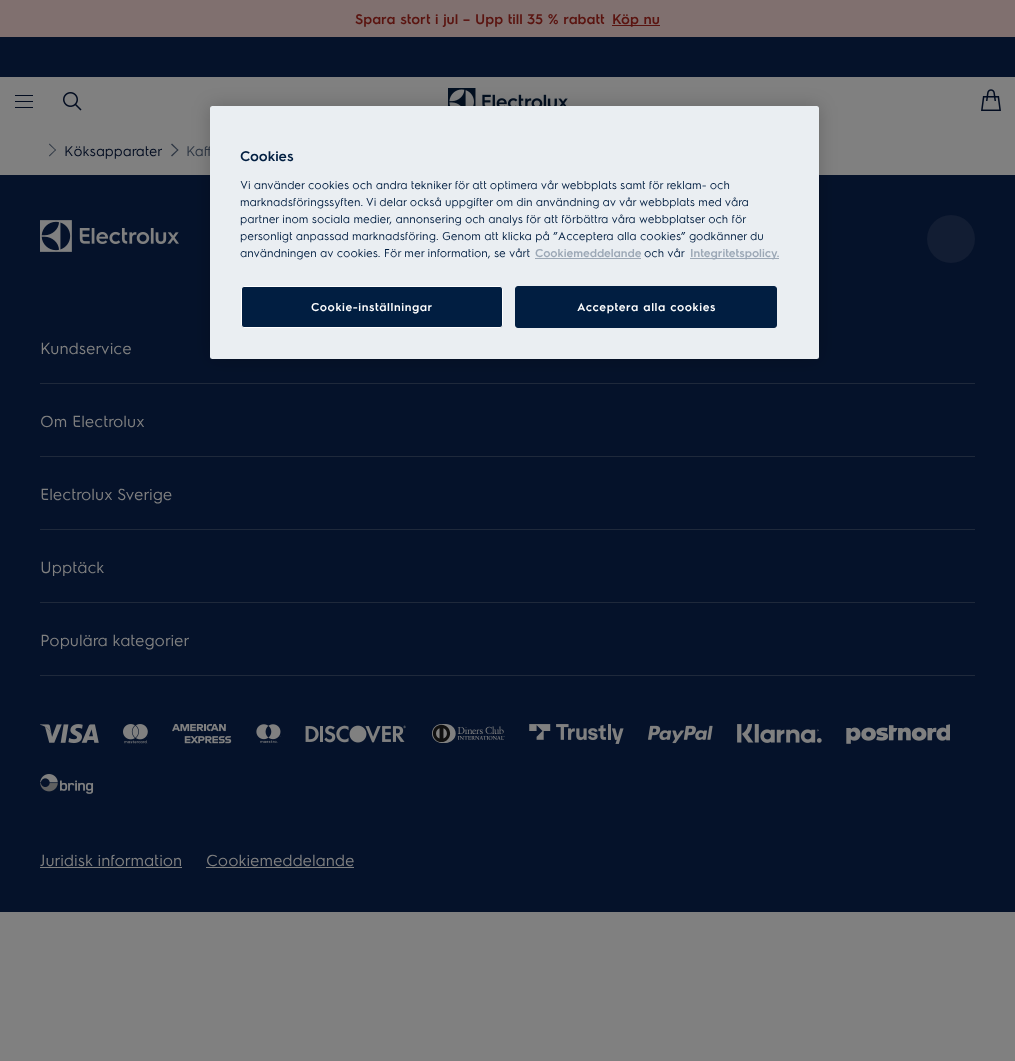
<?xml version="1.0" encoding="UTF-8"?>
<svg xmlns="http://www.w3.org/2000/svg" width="1015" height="1061">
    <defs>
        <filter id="blur1" x="-50%" y="-200%" width="200%" height="500%"><feGaussianBlur stdDeviation="9"/></filter>
    </defs>
    <rect width="100%" height="100%" fill="#808080"/>
    <rect x="0" y="0" width="1015" height="37" fill="#80706F"/>
    <text x="355" y="24" font-family="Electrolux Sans" font-size="14" font-weight="600" fill="#5A1410">Spara stort i jul – Upp till 35 % rabatt</text>
    <rect x="612" y="25" width="48" height="1" fill="#5A1410"/>
    <text x="612" y="24" font-family="Electrolux Sans" font-size="14" font-weight="600" fill="#5A1410">Köp nu</text>
    <rect x="0" y="37" width="1015" height="40" fill="#05122A"/>
    <rect x="15" y="101" width="18" height="1" fill="#020C20"/>
    <rect x="15" y="95" width="18" height="1" fill="#020C20"/>
    <rect x="15" y="107" width="18" height="1" fill="#020C20"/>
    <image x="63" y="92" width="19" height="19" href="img_01.png"/>
    <image x="448" y="88" width="120" height="18" href="img_02.png"/>
    <image x="981" y="89" width="20" height="22" href="img_03.png"/>
    <path d="M 49.5 143.5 L 56 150 L 55.5 150.5 L 49 144.5 Z" fill="#2D3643"/>
    <path d="M 55.5 149.5 L 56 150 L 49.5 156.5 L 49 155.5 Z" fill="#2D3643"/>
    <text x="64" y="156" font-family="Electrolux Sans" font-size="14" fill="#020C20">Köksapparater</text>
    <path d="M 172 143.5 L 178.5 150 L 177.5 150.5 L 171 144.5 Z" fill="#2D3643"/>
    <path d="M 177.5 149.5 L 178.5 150 L 172 156.5 L 171 155.5 Z" fill="#2D3643"/>
    <text x="186" y="156" font-family="Electrolux Sans" font-size="14" fill="#2D3643">Kaff</text>
    <rect x="0" y="175" width="1015" height="737" fill="#05122A"/>
    <image x="40" y="220" width="139" height="32" href="img_04.png"/>
    <circle cx="951" cy="239" r="24" fill="#121D33"/>
    <rect x="40" y="383" width="935" height="1" fill="#1F293B"/>
    <text x="40" y="354" font-family="Electrolux Sans" font-size="16" fill="#808080">Kundservice</text>
    <rect x="40" y="456" width="935" height="1" fill="#1F293B"/>
    <text x="40" y="427" font-family="Electrolux Sans" font-size="16" fill="#808080">Om Electrolux</text>
    <rect x="40" y="529" width="935" height="1" fill="#1F293B"/>
    <text x="40" y="500" font-family="Electrolux Sans" font-size="16" fill="#808080">Electrolux Sverige</text>
    <rect x="40" y="602" width="935" height="1" fill="#1F293B"/>
    <text x="40" y="573" font-family="Electrolux Sans" font-size="16" fill="#808080">Upptäck</text>
    <rect x="40" y="675" width="935" height="1" fill="#1F293B"/>
    <text x="40" y="646" font-family="Electrolux Sans" font-size="16" fill="#808080">Populära kategorier</text>
    <image x="40" y="724" width="59" height="20" href="img_05.png"/>
    <image x="123" y="724" width="25" height="20" href="img_06.png"/>
    <image x="172" y="724" width="60" height="20" href="img_07.png"/>
    <image x="256" y="724" width="25" height="19" href="img_08.png"/>
    <image x="305" y="725" width="101" height="18" href="img_09.png"/>
    <image x="432" y="724" width="73" height="19" href="img_10.png"/>
    <image x="529" y="724" width="95" height="20" href="img_11.png"/>
    <image x="648" y="725" width="65" height="19" href="img_12.png"/>
    <image x="737" y="724" width="85" height="19" href="img_13.png"/>
    <image x="846" y="724" width="104" height="20" href="img_14.png"/>
    <image x="40" y="774" width="54" height="20" href="img_15.png"/>
    <text x="40" y="866" font-family="Electrolux Sans" font-size="16" fill="#808080">Juridisk information</text>
    <rect x="40" y="867" width="142" height="1" fill="#808080"/>
    <text x="206" y="866" font-family="Electrolux Sans" font-size="16" fill="#808080">Cookiemeddelande</text>
    <rect x="206" y="867" width="148" height="1" fill="#808080"/>
    <rect x="210" y="106" width="609" height="253" rx="2.5" fill="#000000" fill-opacity="0.2" filter="url(#blur1)"/>
    <rect x="210" y="106" width="609" height="253" rx="2.5" fill="#EAEEF2"/>
    <text x="240" y="161" font-family="Electrolux Sans" font-size="14" font-weight="600" fill="#011E41">Cookies</text>
    <text font-family="Electrolux Sans" font-size="11.4" fill="#011E41">
        <tspan x="240" y="189">Vi använder cookies och andra tekniker för att optimera vår webbplats samt för reklam- och</tspan>
        <tspan x="240" y="206">marknadsföringssyften. Vi delar också uppgifter om din användning av vår webbplats med våra</tspan>
        <tspan x="240" y="223">partner inom sociala medier, annonsering och analys för att förbättra våra webbplatser och för</tspan>
        <tspan x="240" y="240">personligt anpassad marknadsföring. Genom att klicka på ”Acceptera alla cookies” godkänner du</tspan>
        <tspan x="240" y="257">användningen av cookies. För mer information, se vårt</tspan>
    </text>
    <text x="535" y="257" font-family="Electrolux Sans" font-size="11.4" font-weight="600" fill="#9CA8B6">Cookiemeddelande</text>
    <rect x="535" y="258" width="106" height="1" fill="#9CA8B6"/>
    <text x="644" y="257" font-family="Electrolux Sans" font-size="11.4" fill="#011E41">och vår</text>
    <rect x="690" y="258" width="89" height="1" fill="#9CA8B6"/>
    <text x="690" y="257" font-family="Electrolux Sans" font-size="11.4" font-weight="600" fill="#9CA8B6">Integritetspolicy.</text>
    <rect x="241.5" y="286.5" width="261" height="41" rx="2.5" fill="#011E41" stroke="#FFFFFF"/>
    <text x="311" y="311" font-family="Electrolux Sans" font-size="11.4" font-weight="600" letter-spacing="0.6" fill="#FFFFFF">Cookie-inställningar</text>
    <rect x="515.5" y="286.5" width="261" height="41" rx="2.5" fill="#011E41" stroke="#011E41"/>
    <text x="577" y="311" font-family="Electrolux Sans" font-size="11.4" font-weight="600" letter-spacing="0.6" fill="#FFFFFF">Acceptera alla cookies</text>
</svg>
